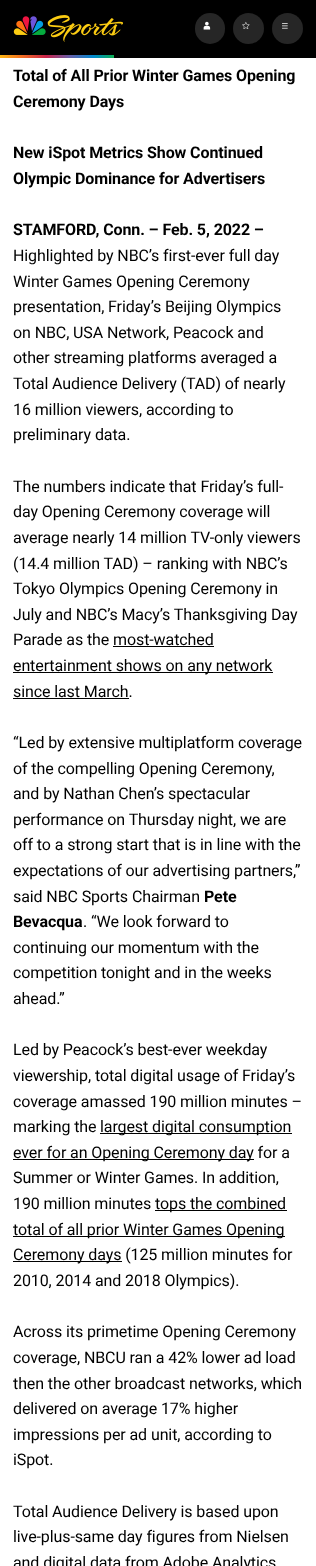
<?xml version="1.0" encoding="UTF-8"?>
<svg xmlns="http://www.w3.org/2000/svg" width="316" height="1566">
    <rect width="100%" height="100%" fill="#FFFFFF"/>
    <rect x="0" y="0" width="316" height="58" fill="#000000"/>
    <image x="13" y="15" width="110" height="27" href="img_01.png"/>
    <rect x="195" y="13" width="30" height="31" rx="15" fill="#262626"/>
    <image x="203" y="21" width="8" height="9" href="img_02.png"/>
    <circle cx="248.5" cy="28.5" r="15.5" fill="#262626"/>
    <image x="242" y="21" width="8" height="8" href="img_03.png"/>
    <circle cx="287.5" cy="28.5" r="15.5" fill="#262626"/>
    <image x="282" y="23" width="6" height="6" href="img_04.png"/>
    <image x="0" y="55" width="114" height="3" href="img_05.png"/>
    <text font-family="Roboto" font-size="16" font-weight="700" letter-spacing="-0.1" fill="#000000">
        <tspan x="13" y="81">Total of All Prior Winter Games Opening</tspan>
        <tspan x="13" y="107">Ceremony Days</tspan>
    </text>
    <text font-family="Roboto" font-size="16" font-weight="700" letter-spacing="-0.1" fill="#000000">
        <tspan x="13" y="158">New iSpot Metrics Show Continued</tspan>
        <tspan x="13" y="184">Olympic Dominance for Advertisers</tspan>
    </text>
    <text x="13" y="235" font-family="Roboto" font-size="16" font-weight="700" letter-spacing="-0.1" fill="#000000">STAMFORD, Conn. – Feb. 5, 2022 –</text>
    <text font-family="Roboto" font-size="16" letter-spacing="-0.1" fill="#000000">
        <tspan x="13" y="261">Highlighted by NBC’s first-ever full day</tspan>
        <tspan x="13" y="287">Winter Games Opening Ceremony</tspan>
        <tspan x="13" y="312">presentation, Friday’s Beijing Olympics</tspan>
        <tspan x="13" y="338">on NBC, USA Network, Peacock and</tspan>
        <tspan x="13" y="363">other streaming platforms averaged a</tspan>
        <tspan x="13" y="389">Total Audience Delivery (TAD) of nearly</tspan>
        <tspan x="13" y="415">16 million viewers, according to</tspan>
        <tspan x="13" y="440">preliminary data.</tspan>
    </text>
    <text font-family="Roboto" font-size="16" letter-spacing="-0.1" fill="#000000">
        <tspan x="13" y="492">The numbers indicate that Friday’s full-</tspan>
        <tspan x="13" y="517">day Opening Ceremony coverage will</tspan>
        <tspan x="13" y="543">average nearly 14 million TV-only viewers</tspan>
        <tspan x="13" y="569">(14.4 million TAD) – ranking with NBC’s</tspan>
        <tspan x="13" y="594">Tokyo Olympics Opening Ceremony in</tspan>
        <tspan x="13" y="620">July and NBC’s Macy’s Thanksgiving Day</tspan>
        <tspan x="13" y="645">Parade as the most-watched</tspan>
    </text>
    <rect x="13" y="672" width="260" height="1" fill="#000000"/>
    <text x="13" y="671" font-family="Roboto" font-size="16" letter-spacing="-0.1" fill="#000000">entertainment shows on any network</text>
    <rect x="113" y="646" width="101" height="1" fill="#000000"/>
    <text x="13" y="697" font-family="Roboto" font-size="16" letter-spacing="-0.1" fill="#000000">since last March.</text>
    <rect x="13" y="698" width="116" height="1" fill="#000000"/>
    <text font-family="Roboto" font-size="16" letter-spacing="-0.1" fill="#000000">
        <tspan x="13" y="748">“Led by extensive multiplatform coverage</tspan>
        <tspan x="13" y="774">of the compelling Opening Ceremony,</tspan>
        <tspan x="13" y="799">and by Nathan Chen’s spectacular</tspan>
        <tspan x="13" y="825">performance on Thursday night, we are</tspan>
        <tspan x="13" y="850">off to a strong start that is in line with the</tspan>
        <tspan x="13" y="876">expectations of our advertising partners,”</tspan>
        <tspan x="13" y="902">said NBC Sports Chairman</tspan>
    </text>
    <text x="204" y="902" font-family="Roboto" font-size="16" font-weight="700" letter-spacing="-0.1" fill="#000000">Pete</text>
    <text x="13" y="927" font-family="Roboto" font-size="16" font-weight="700" letter-spacing="-0.1" fill="#000000">Bevacqua</text>
    <text x="83" y="927" font-family="Roboto" font-size="16" letter-spacing="-0.1" fill="#000000">. “We look forward to</text>
    <text font-family="Roboto" font-size="16" letter-spacing="-0.1" fill="#000000">
        <tspan x="13" y="953">continuing our momentum with the</tspan>
        <tspan x="13" y="978">competition tonight and in the weeks</tspan>
        <tspan x="13" y="1004">ahead.”</tspan>
    </text>
    <text font-family="Roboto" font-size="16" letter-spacing="-0.1" fill="#000000">
        <tspan x="13" y="1055">Led by Peacock’s best-ever weekday</tspan>
        <tspan x="13" y="1081">viewership, total digital usage of Friday’s</tspan>
        <tspan x="13" y="1107">coverage amassed 190 million minutes –</tspan>
        <tspan x="13" y="1132">marking the</tspan>
    </text>
    <rect x="100" y="1133" width="192" height="1" fill="#000000"/>
    <text x="100" y="1132" font-family="Roboto" font-size="16" letter-spacing="-0.1" fill="#000000">largest digital consumption</text>
    <rect x="13" y="1159" width="241" height="1" fill="#000000"/>
    <text font-family="Roboto" font-size="16" letter-spacing="-0.1" fill="#000000">
        <tspan x="13" y="1158">ever for an Opening Ceremony day for a</tspan>
        <tspan x="13" y="1183">Summer or Winter Games. In addition,</tspan>
        <tspan x="13" y="1209">190 million minutes</tspan>
    </text>
    <rect x="155" y="1210" width="132" height="1" fill="#000000"/>
    <text x="155" y="1209" font-family="Roboto" font-size="16" letter-spacing="-0.1" fill="#000000">tops the combined</text>
    <rect x="13" y="1236" width="272" height="1" fill="#000000"/>
    <text x="13" y="1235" font-family="Roboto" font-size="16" letter-spacing="-0.1" fill="#000000">total of all prior Winter Games Opening</text>
    <rect x="13" y="1261" width="109" height="1" fill="#000000"/>
    <text font-family="Roboto" font-size="16" letter-spacing="-0.1" fill="#000000">
        <tspan x="13" y="1260">Ceremony days (125 million minutes for</tspan>
        <tspan x="13" y="1286">2010, 2014 and 2018 Olympics).</tspan>
    </text>
    <text font-family="Roboto" font-size="16" letter-spacing="-0.1" fill="#000000">
        <tspan x="13" y="1337">Across its primetime Opening Ceremony</tspan>
        <tspan x="13" y="1363">coverage, NBCU ran a 42% lower ad load</tspan>
        <tspan x="13" y="1389">then the other broadcast networks, which</tspan>
        <tspan x="13" y="1414">delivered on average 17% higher</tspan>
        <tspan x="13" y="1440">impressions per ad unit, according to</tspan>
        <tspan x="13" y="1465">iSpot.</tspan>
    </text>
    <text font-family="Roboto" font-size="16" letter-spacing="-0.1" fill="#000000">
        <tspan x="13" y="1517">Total Audience Delivery is based upon</tspan>
        <tspan x="13" y="1542">live-plus-same day figures from Nielsen</tspan>
        <tspan x="13" y="1568">and digital data from Adobe Analytics</tspan>
    </text>
</svg>
